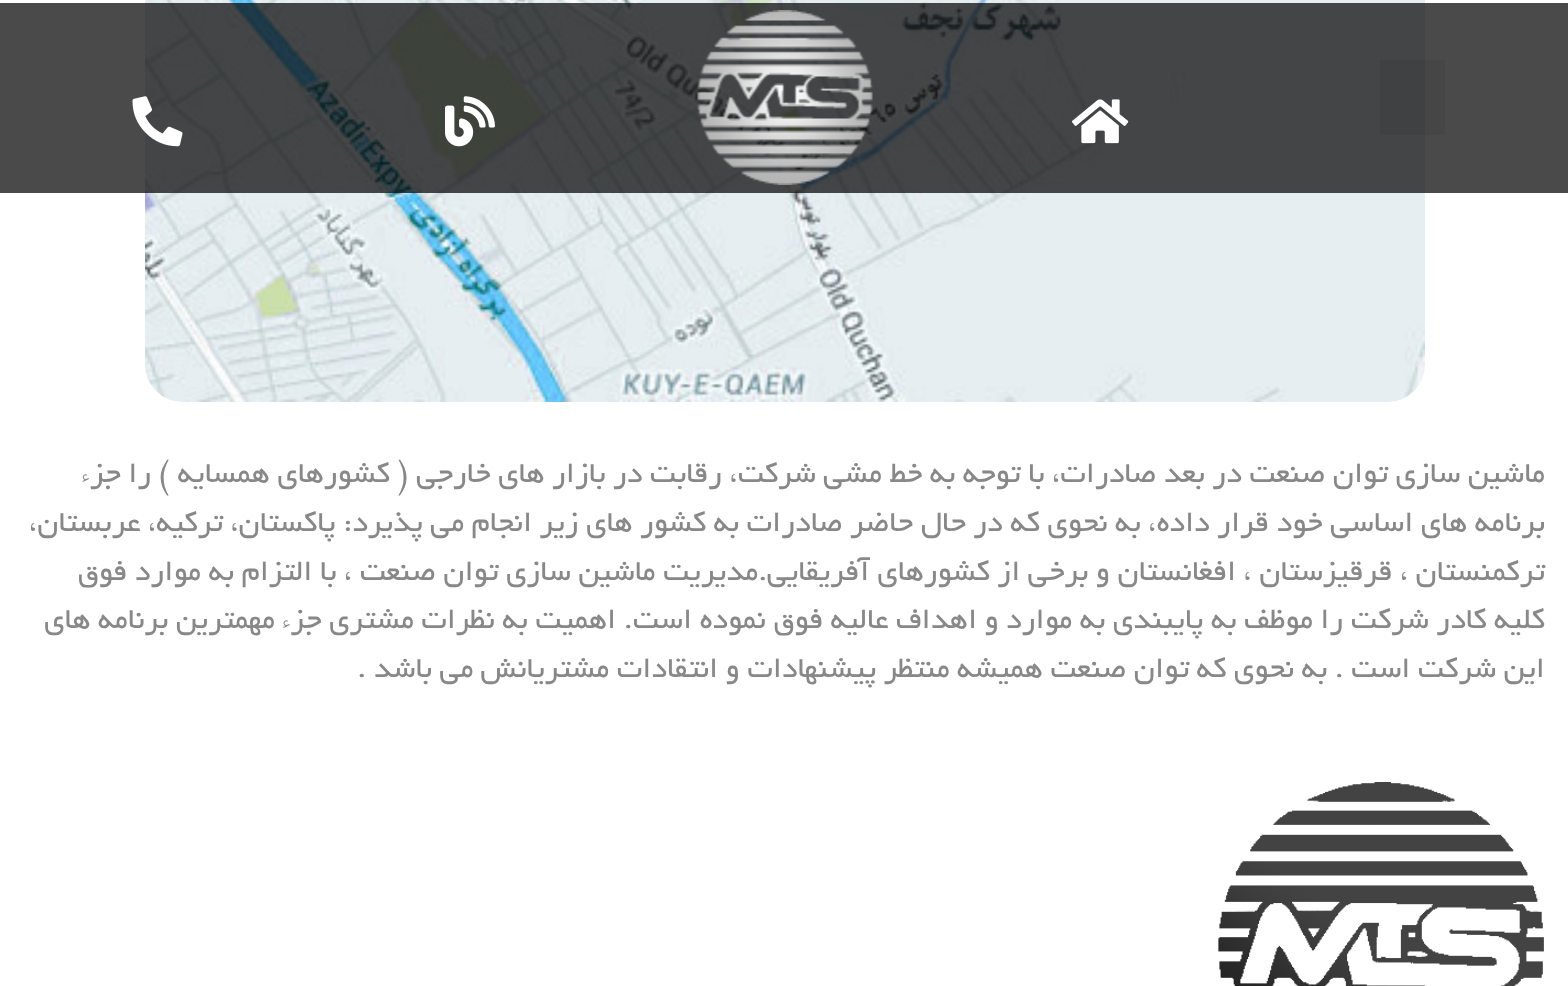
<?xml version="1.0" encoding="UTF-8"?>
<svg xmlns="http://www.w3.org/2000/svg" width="1568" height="986">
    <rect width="100%" height="100%" fill="#FFFFFF"/>
    <image x="145" y="0" width="1280" height="402" href="img_05.png"/>
    <rect x="0" y="3" width="1568" height="190" fill="#000000" fill-opacity="0.71"/>
    <rect x="1380" y="60" width="65" height="75" fill="#000000" fill-opacity="0.05"/>
    <image x="1072" y="99" width="57" height="45" href="img_01.png"/>
    <image x="697" y="10" width="176" height="175" href="img_02.png"/>
    <image x="445" y="96" width="50" height="51" href="img_03.png"/>
    <image x="132" y="96" width="51" height="51" href="img_04.png"/>
    <text font-family="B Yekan" font-size="32.5" direction="rtl" fill="#888888">
        <tspan x="1545" y="482">ماشین سازی توان صنعت در بعد صادرات، با توجه به خط مشی شرکت، رقابت در بازار های خارجی ( کشورهای همسایه ) را جزء</tspan>
        <tspan x="1545" y="531">برنامه های اساسی خود قرار داده، به نحوی که در حال حاضر صادرات به کشور های زیر انجام می پذیرد: پاکستان، ترکیه، عربستان،</tspan>
        <tspan x="1545" y="580">ترکمنستان ، قرقیزستان ، افغانستان و برخی از کشورهای آفریقایی.مدیریت ماشین سازی توان صنعت ، با التزام به موارد فوق</tspan>
        <tspan x="1545" y="628">کلیه کادر شرکت را موظف به پایبندی به موارد و اهداف عالیه فوق نموده است. اهميت به نظرات مشتري جزء مهمترين برنامه هاي</tspan>
        <tspan x="1545" y="677">اين شركت است . به نحوي كه توان صنعت هميشه منتظر پيشنهادات و انتقادات مشتريانش مي باشد .</tspan>
    </text>
    <image x="1218" y="782" width="326" height="204" href="img_06.png"/>
</svg>
